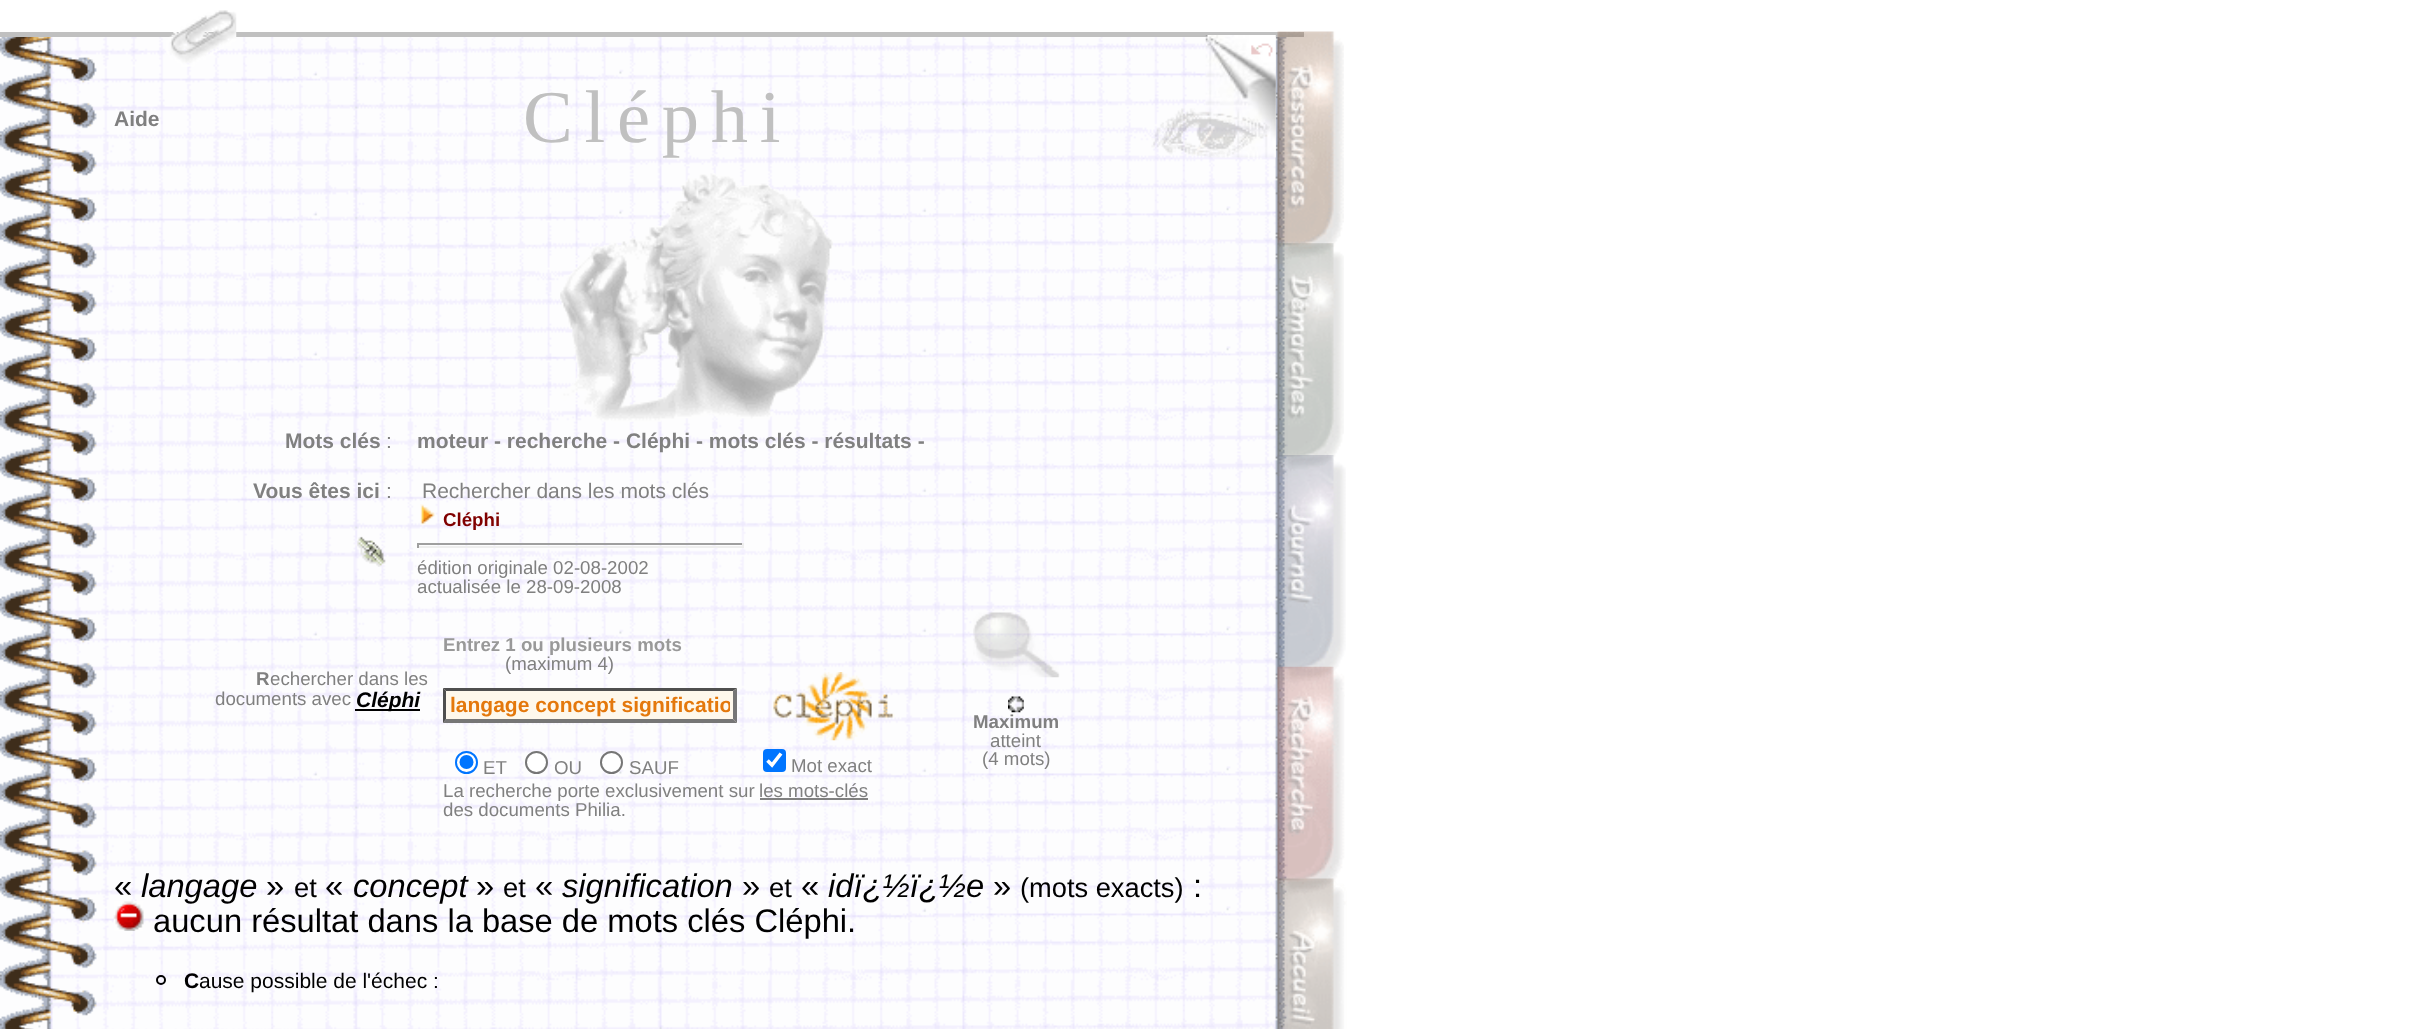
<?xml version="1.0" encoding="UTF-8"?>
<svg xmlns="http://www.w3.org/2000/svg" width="2433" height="1029">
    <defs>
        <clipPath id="clip1"><rect x="450" y="693" width="280" height="25"/></clipPath>
    </defs>
    <rect width="100%" height="100%" fill="#FFFFFF"/>
    <image x="0" y="37" width="1288" height="992" href="img_01.png"/>
    <rect x="0" y="32" width="1304" height="5" fill="#C0C0C0"/>
    <image x="166" y="10" width="71" height="57" href="img_02.png"/>
    <image x="1277" y="31" width="67" height="233" href="img_03.png"/>
    <image x="1205" y="35" width="71" height="123" href="img_04.png"/>
    <image x="1251" y="43" width="22" height="14" href="img_05.png"/>
    <text x="114" y="126" font-family="Liberation Sans" font-size="21" font-weight="700" fill="#808080">Aide</text>
    <text x="523" y="142" font-family="Liberation Serif" font-size="74.5" letter-spacing="11.75" fill="#C0C0C0">Cléphi</text>
    <image x="1151" y="108" width="119" height="48" href="img_06.png"/>
    <image x="560" y="173" width="273" height="249" href="img_07.png"/>
    <image x="1277" y="243" width="67" height="233" href="img_08.png"/>
    <text x="285" y="448" font-family="Liberation Sans" font-size="21" font-weight="700" fill="#808080">Mots clés</text>
    <text x="386" y="448" font-family="Liberation Sans" font-size="21" fill="#808080">:</text>
    <text x="417" y="448" font-family="Liberation Sans" font-size="21" font-weight="700" fill="#808080">moteur - recherche - Cléphi - mots clés - résultats -</text>
    <text x="253" y="498" font-family="Liberation Sans" font-size="21" font-weight="700" fill="#808080">Vous êtes ici</text>
    <text x="386" y="498" font-family="Liberation Sans" font-size="21" fill="#808080">:</text>
    <image x="357" y="536" width="29" height="31" href="img_09.png"/>
    <text x="422" y="498" font-family="Liberation Sans" font-size="21" fill="#808080">Rechercher dans les mots clés</text>
    <image x="420" y="504" width="15" height="21" href="img_10.png"/>
    <text x="443" y="526" font-family="Liberation Sans" font-size="18.7" font-weight="700" fill="#800000">Cléphi</text>
    <rect x="417" y="543" width="327" height="2" fill="#9F9F9F"/>
    <rect x="742" y="543" width="2" height="5" fill="#EEEEEE"/>
    <rect x="417" y="546" width="327" height="2" fill="#EEEEEE"/>
    <rect x="417" y="543" width="2" height="5" fill="#9F9F9F"/>
    <text font-family="Liberation Sans" font-size="18.7" fill="#808080">
        <tspan x="417" y="574">édition originale 02-08-2002</tspan>
        <tspan x="417" y="593">actualisée le 28-09-2008</tspan>
    </text>
    <text x="256" y="685" font-family="Liberation Sans" font-size="18.7" font-weight="700" fill="#808080">R</text>
    <text x="270" y="685" font-family="Liberation Sans" font-size="18.7" fill="#808080">echercher dans les</text>
    <text x="215" y="705" font-family="Liberation Sans" font-size="18.7" fill="#808080">documents avec</text>
    <rect x="355" y="709" width="65" height="2" fill="#000000"/>
    <text x="356" y="707" font-family="Liberation Sans" font-size="21" font-weight="700" font-style="italic" fill="#000000">Cléphi</text>
    <text x="443" y="651" font-family="Liberation Sans" font-size="18.7" font-weight="700" fill="#999999">Entrez 1 ou plusieurs mots</text>
    <text x="505" y="670" font-family="Liberation Sans" font-size="18.7" fill="#808080">(maximum 4)</text>
    <rect x="443" y="688" width="294" height="35" fill="#FEF8EC"/>
    <path d="M 443 688 H 737 L 733 691 H 446 Z" fill="#4F4F4F"/>
    <path d="M 737 688 V 723 L 733 719 V 691 Z" fill="#767676"/>
    <path d="M 737 723 H 443 L 446 719 H 733 Z" fill="#767676"/>
    <path d="M 443 723 V 688 L 446 691 V 719 Z" fill="#4F4F4F"/>
    <g clip-path="url(#clip1)">
        <text x="450" y="712" font-family="Liberation Sans" font-size="21" font-weight="700" fill="#E4780C">langage concept significatio</text>
    </g>
    <image x="773" y="672" width="122" height="69" href="img_11.png"/>
    <circle cx="466.5" cy="762.5" r="10.5" fill="#FFFFFF" stroke="#0075FF" stroke-width="2"/>
    <circle cx="466.5" cy="762" r="7" fill="#0075FF"/>
    <text x="483" y="774" font-family="Liberation Sans" font-size="18.7" fill="#808080">ET</text>
    <circle cx="536.5" cy="762.5" r="10.5" fill="#FFFFFF" stroke="#767676" stroke-width="2"/>
    <text x="554" y="774" font-family="Liberation Sans" font-size="18.7" fill="#808080">OU</text>
    <circle cx="611.5" cy="762.5" r="10.5" fill="#FFFFFF" stroke="#767676" stroke-width="2"/>
    <text x="629" y="774" font-family="Liberation Sans" font-size="18.7" fill="#808080">SAUF</text>
    <rect x="763" y="749" width="23" height="23" rx="4" fill="#0075FF"/>
    <path d="M 767.5 760.5 L 772 765 L 781 753.5" fill="none" stroke="#FFFFFF" stroke-width="3.6"/>
    <text x="791" y="772" font-family="Liberation Sans" font-size="18.7" fill="#808080">Mot exact</text>
    <text x="443" y="797" font-family="Liberation Sans" font-size="18.7" fill="#808080">La recherche porte exclusivement sur</text>
    <text x="759" y="797" font-family="Liberation Sans" font-size="18.7" fill="#808080">les mots-clés</text>
    <rect x="760" y="798" width="108" height="2" fill="#808080"/>
    <text x="443" y="816" font-family="Liberation Sans" font-size="18.7" fill="#808080">des documents Philia.</text>
    <image x="973" y="612" width="87" height="66" href="img_12.png"/>
    <image x="1008" y="696" width="16" height="17" href="img_13.png"/>
    <text x="973" y="728" font-family="Liberation Sans" font-size="18.7" font-weight="700" fill="#808080">Maximum</text>
    <text x="990" y="747" font-family="Liberation Sans" font-size="18.7" fill="#808080">atteint</text>
    <text x="982" y="765" font-family="Liberation Sans" font-size="18.7" fill="#808080">(4 mots)</text>
    <text x="114" y="897" font-family="Liberation Sans" font-size="32.7" fill="#000000">«</text>
    <text x="141" y="897" font-family="Liberation Sans" font-size="32.7" font-style="italic" fill="#000000">langage</text>
    <text x="266" y="897" font-family="Liberation Sans" font-size="32.7" fill="#000000">»</text>
    <text x="294" y="897" font-family="Liberation Sans" font-size="27.25" fill="#000000">et</text>
    <text x="325" y="897" font-family="Liberation Sans" font-size="32.7" fill="#000000">«</text>
    <text x="353" y="897" font-family="Liberation Sans" font-size="32.7" font-style="italic" fill="#000000">concept</text>
    <text x="476" y="897" font-family="Liberation Sans" font-size="32.7" fill="#000000">»</text>
    <text x="503" y="897" font-family="Liberation Sans" font-size="27.25" fill="#000000">et</text>
    <text x="535" y="897" font-family="Liberation Sans" font-size="32.7" fill="#000000">«</text>
    <text x="562" y="897" font-family="Liberation Sans" font-size="32.7" font-style="italic" fill="#000000">signification</text>
    <text x="742" y="897" font-family="Liberation Sans" font-size="32.7" fill="#000000">»</text>
    <text x="769" y="897" font-family="Liberation Sans" font-size="27.25" fill="#000000">et</text>
    <text x="801" y="897" font-family="Liberation Sans" font-size="32.7" fill="#000000">«</text>
    <text x="828" y="897" font-family="Liberation Sans" font-size="32.7" font-style="italic" fill="#000000">idï¿½ï¿½e</text>
    <text x="993" y="897" font-family="Liberation Sans" font-size="32.7" fill="#000000">»</text>
    <text x="1020" y="897" font-family="Liberation Sans" font-size="27.25" fill="#000000">(mots exacts)</text>
    <text x="1193" y="897" font-family="Liberation Sans" font-size="32.7" fill="#000000">:</text>
    <image x="113" y="901" width="31" height="30" href="img_14.png"/>
    <text x="153" y="932" font-family="Liberation Sans" font-size="32.7" fill="#000000">aucun résultat dans la base de mots clés Cléphi.</text>
    <circle cx="161" cy="980" r="4" fill="none" stroke="#000000" stroke-width="2"/>
    <text x="184" y="988" font-family="Liberation Sans" font-size="21" font-weight="700" fill="#000000">C</text>
    <text x="199" y="988" font-family="Liberation Sans" font-size="21" fill="#000000">ause possible de l'échec :</text>
    <image x="1277" y="455" width="69" height="233" href="img_15.png"/>
    <image x="1277" y="666" width="68" height="234" href="img_16.png"/>
    <image x="1277" y="878" width="70" height="151" href="img_17.png"/>
</svg>
